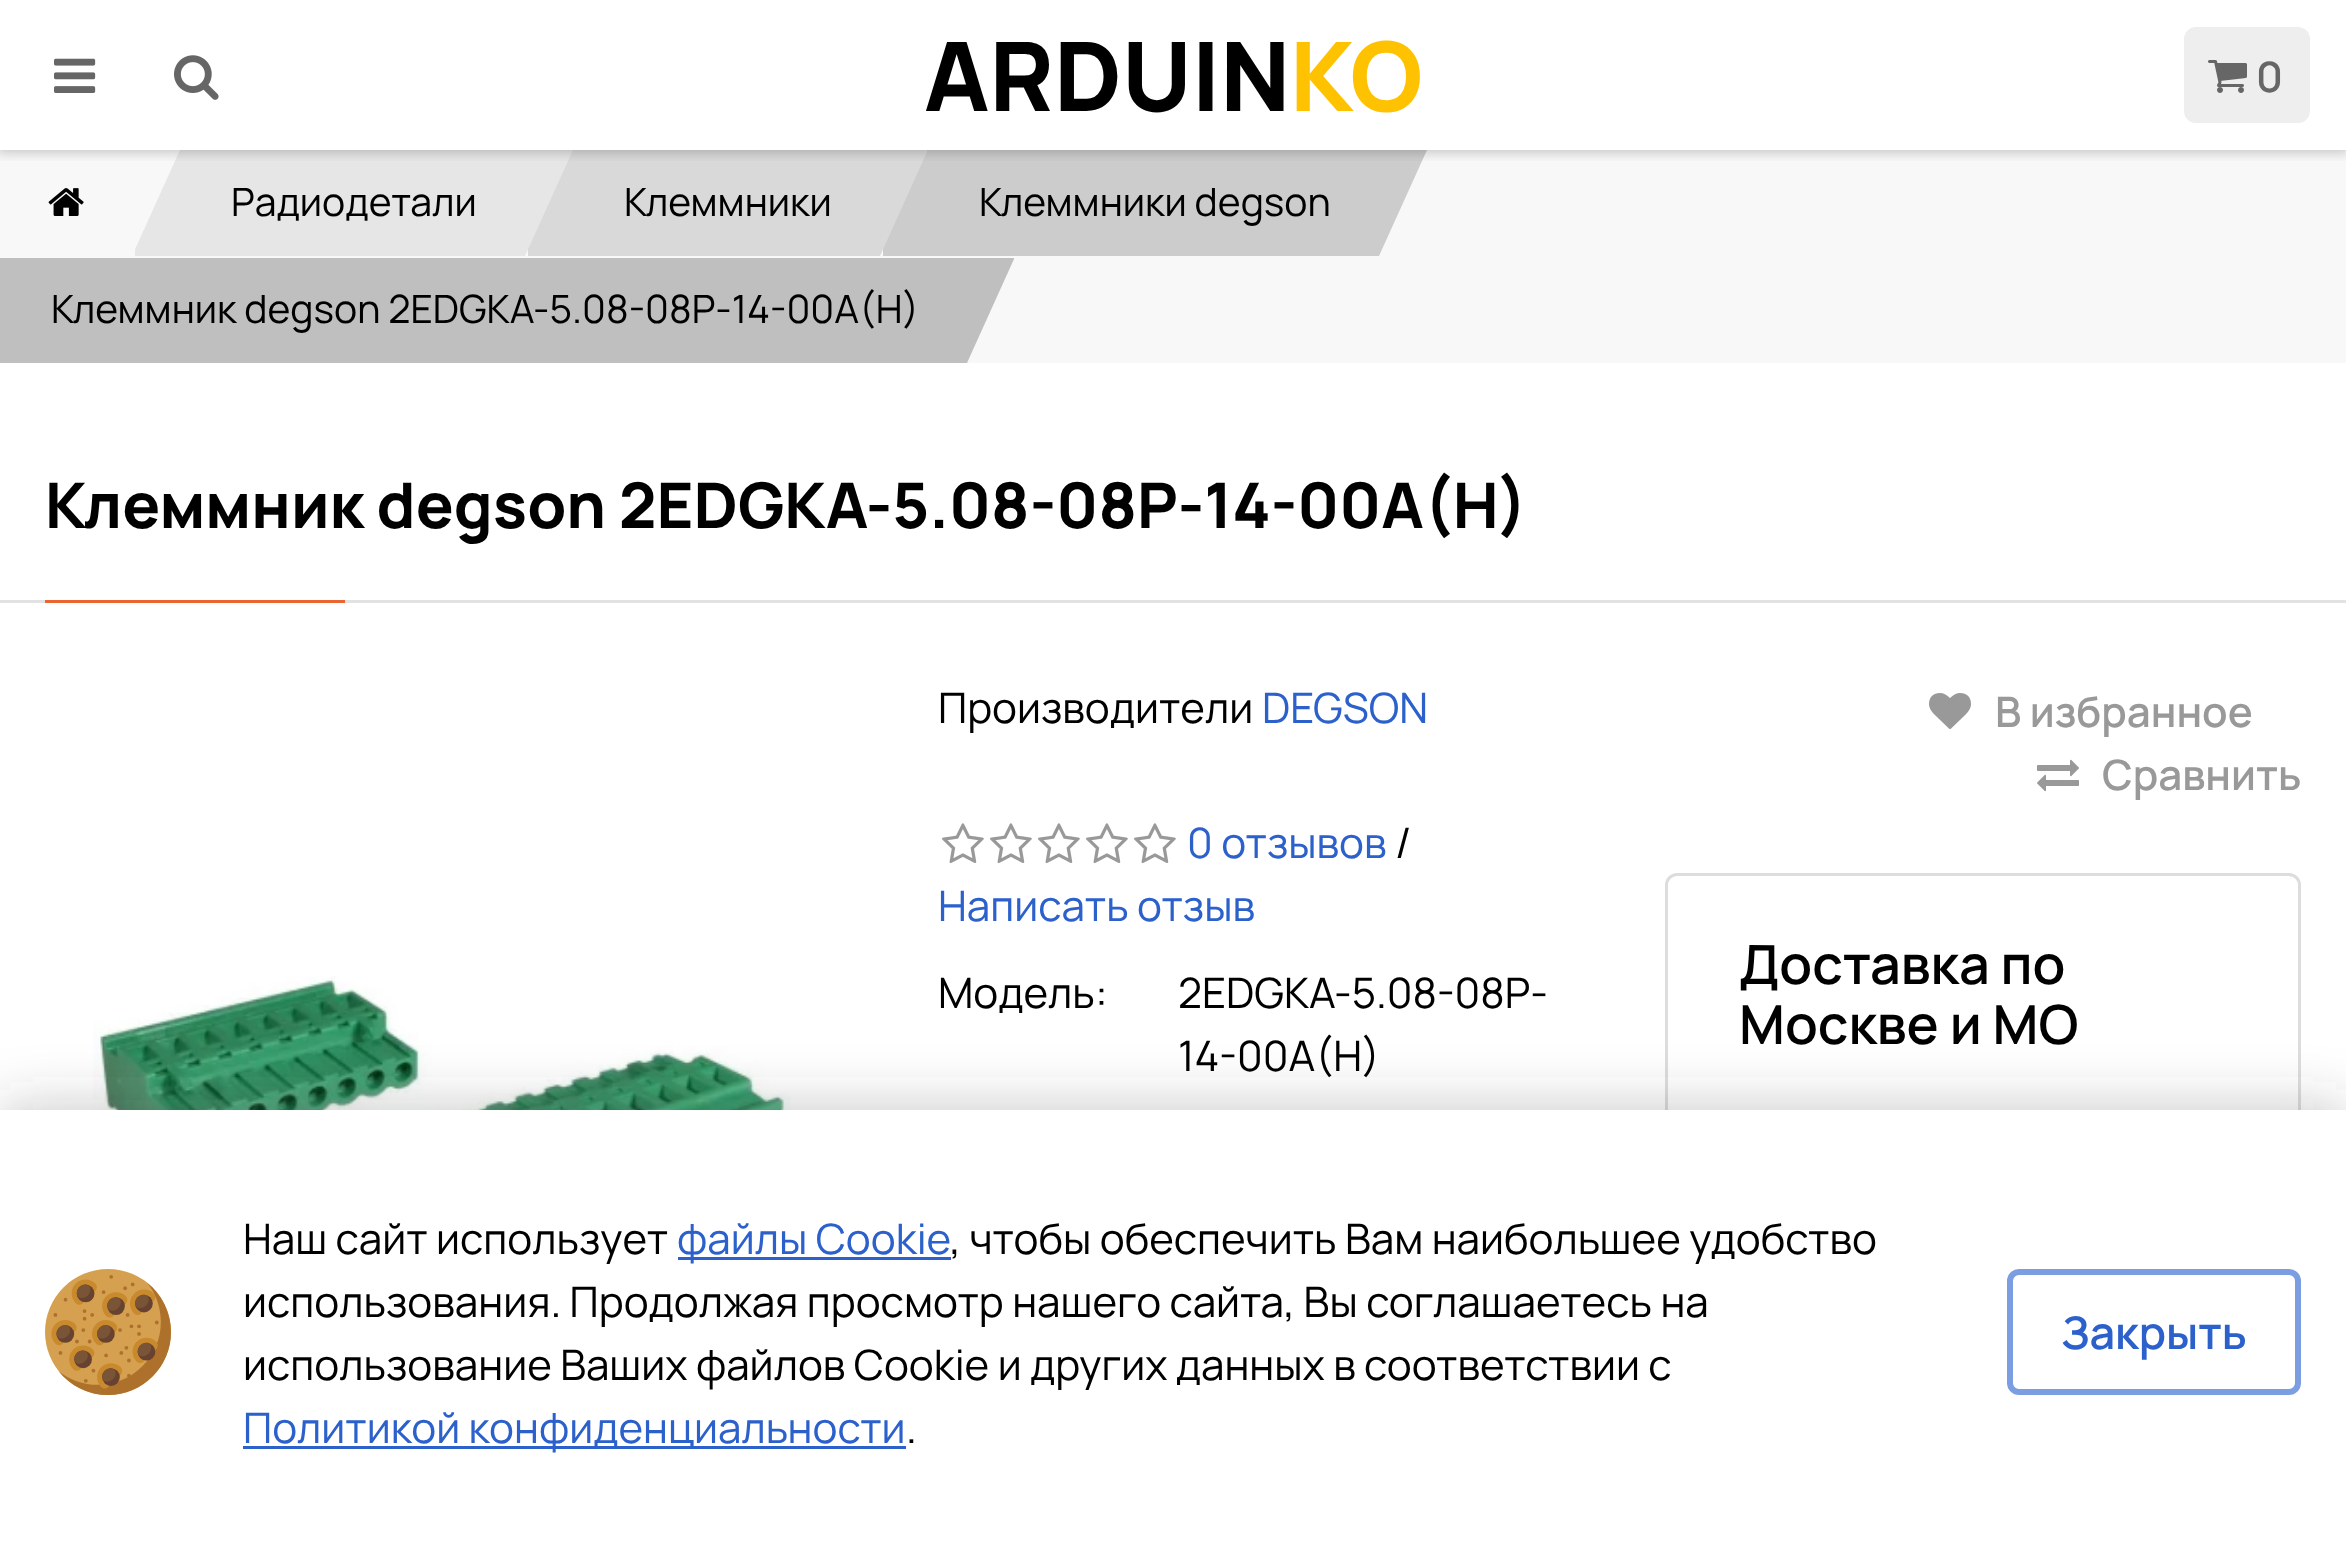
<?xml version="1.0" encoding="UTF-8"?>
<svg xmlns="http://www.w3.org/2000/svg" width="2346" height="1553">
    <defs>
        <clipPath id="clip1"><rect x="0" y="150" width="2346" height="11"/></clipPath>
        <filter id="blur1" x="-50%" y="-200%" width="200%" height="500%"><feGaussianBlur stdDeviation="6"/></filter>
        <filter id="blur2" x="-50%" y="-200%" width="200%" height="500%"><feGaussianBlur stdDeviation="30"/></filter>
    </defs>
    <rect width="100%" height="100%" fill="#FFFFFF"/>
    <rect x="0" y="150" width="2346" height="213" fill="#F8F8F8"/>
    <path d="M 883 150 V 256 H 1379 L 1427 150 Z" fill="#CCCCCC"/>
    <path d="M 528 150 V 256 H 880 L 927 152 V 150 Z" fill="#D9D9D9"/>
    <path d="M 135 150 V 256 H 525 L 573 150 Z" fill="#E6E6E6"/>
    <path d="M 0 150 V 256 H 132 L 180 150 Z" fill="#F8F8F8"/>
    <g clip-path="url(#clip1)">
        <rect x="-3" y="-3" width="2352" height="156" fill="#000000" fill-opacity="0.2" filter="url(#blur1)"/>
    </g>
    <image x="54" y="58" width="42" height="35" href="img_01.png"/>
    <image x="174" y="55" width="45" height="45" href="img_02.png"/>
    <text x="924" y="111" font-family="Manrope" font-size="96" font-weight="800" fill="#000000">ARDUIN</text>
    <text x="1290" y="111" font-family="Manrope" font-size="96" font-weight="800" fill="#FFC200">KO</text>
    <rect x="2187" y="30" width="120" height="90" rx="9" fill="#EEEEEE" stroke="#EEEEEE" stroke-width="6"/>
    <image x="2208" y="60" width="39" height="33" href="img_03.png"/>
    <text x="2256" y="92" font-family="Manrope" font-size="42" font-weight="600" fill="#666666">0</text>
    <image x="48" y="188" width="36" height="28" href="img_04.png"/>
    <text x="231" y="216" font-family="Manrope" font-size="39" fill="#000000">Радиодетали</text>
    <text x="624" y="216" font-family="Manrope" font-size="39" fill="#000000">Клеммники</text>
    <text x="979" y="216" font-family="Manrope" font-size="39" fill="#000000">Клеммники degson</text>
    <path d="M -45 258 V 363 H 967 L 1014 259 V 258 Z" fill="#BFBFBF"/>
    <text x="51" y="323" font-family="Manrope" font-size="39" fill="#000000">Клеммник degson 2EDGKA-5.08-08P-14-00A(H)</text>
    <rect x="0" y="600" width="2346" height="3" fill="#E2E2E2"/>
    <text x="45" y="528" font-family="Manrope" font-size="63" font-weight="700" fill="#000000">Клеммник degson 2EDGKA-5.08-08P-14-00A(H)</text>
    <rect x="45" y="600" width="300" height="3" fill="#E96631"/>
    <image x="93" y="976" width="698" height="134" href="img_05.png"/>
    <text x="938" y="723" font-family="Manrope" font-size="42" fill="#000000">Производители</text>
    <text x="1262" y="723" font-family="Manrope" font-size="42" fill="#2C61CC">DEGSON</text>
    <image x="942" y="823" width="42" height="40" href="img_06.png"/>
    <image x="990" y="823" width="42" height="40" href="img_06.png"/>
    <image x="1038" y="823" width="42" height="40" href="img_06.png"/>
    <image x="1086" y="823" width="42" height="40" href="img_06.png"/>
    <image x="1134" y="823" width="42" height="40" href="img_06.png"/>
    <text x="1187" y="858" font-family="Manrope" font-size="42" fill="#2C61CC">0 отзывов</text>
    <text x="1395" y="858" font-family="Manrope" font-size="42" fill="#000000">/</text>
    <text x="938" y="921" font-family="Manrope" font-size="42" fill="#2C61CC">Написать отзыв</text>
    <text x="938" y="1008" font-family="Manrope" font-size="42" fill="#000000">Модель:</text>
    <text font-family="Manrope" font-size="42" fill="#000000">
        <tspan x="1178" y="1008">2EDGKA-5.08-08P-</tspan>
        <tspan x="1178" y="1071">14-00A(H)</tspan>
    </text>
    <image x="1929" y="693" width="42" height="36" href="img_07.png"/>
    <text x="1995" y="727" font-family="Manrope" font-size="42" font-weight="600" fill="#999999">В избранное</text>
    <image x="2037" y="759" width="42" height="33" href="img_08.png"/>
    <text x="2102" y="790" font-family="Manrope" font-size="42" font-weight="600" fill="#999999">Сравнить</text>
    <rect x="1666.5" y="874.5" width="633" height="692" rx="10.5" fill="none" stroke="#DDDDDD" stroke-width="3"/>
    <text font-family="Manrope" font-size="54" font-weight="600" fill="#000000">
        <tspan x="1739" y="984">Доставка по</tspan>
        <tspan x="1739" y="1044">Москве и МО</tspan>
    </text>
    <rect x="0" y="1110" width="2346" height="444" fill="#404041" fill-opacity="0.3" filter="url(#blur2)"/>
    <rect x="0" y="1110" width="2346" height="443" fill="#FFFFFF"/>
    <image x="45" y="1269" width="126" height="126" href="img_09.png"/>
    <text x="243" y="1254" font-family="Manrope" font-size="42" fill="#000000">Наш сайт использует</text>
    <rect x="678" y="1257" width="273" height="3" fill="#2C61CC"/>
    <text x="677" y="1254" font-family="Manrope" font-size="42" fill="#2C61CC">файлы Cookie</text>
    <text x="950" y="1254" font-family="Manrope" font-size="42" fill="#000000">, чтобы обеспечить Вам наибольшее удобство</text>
    <text font-family="Manrope" font-size="42" fill="#000000">
        <tspan x="243" y="1317">использования. Продолжая просмотр нашего сайта, Вы соглашаетесь на</tspan>
        <tspan x="243" y="1380">использование Ваших файлов Cookie и других данных в соответствии с</tspan>
    </text>
    <rect x="243" y="1446" width="663" height="3" fill="#2C61CC"/>
    <text x="243" y="1443" font-family="Manrope" font-size="42" fill="#2C61CC">Политикой конфиденциальности</text>
    <text x="906" y="1443" font-family="Manrope" font-size="42" fill="#000000">.</text>
    <rect x="2010" y="1272" width="288" height="120" rx="9" fill="none" stroke="#7B9EE3" stroke-width="6"/>
    <text x="2061" y="1349" font-family="Manrope" font-size="45" font-weight="600" fill="#2C61CC">Закрыть</text>
</svg>
